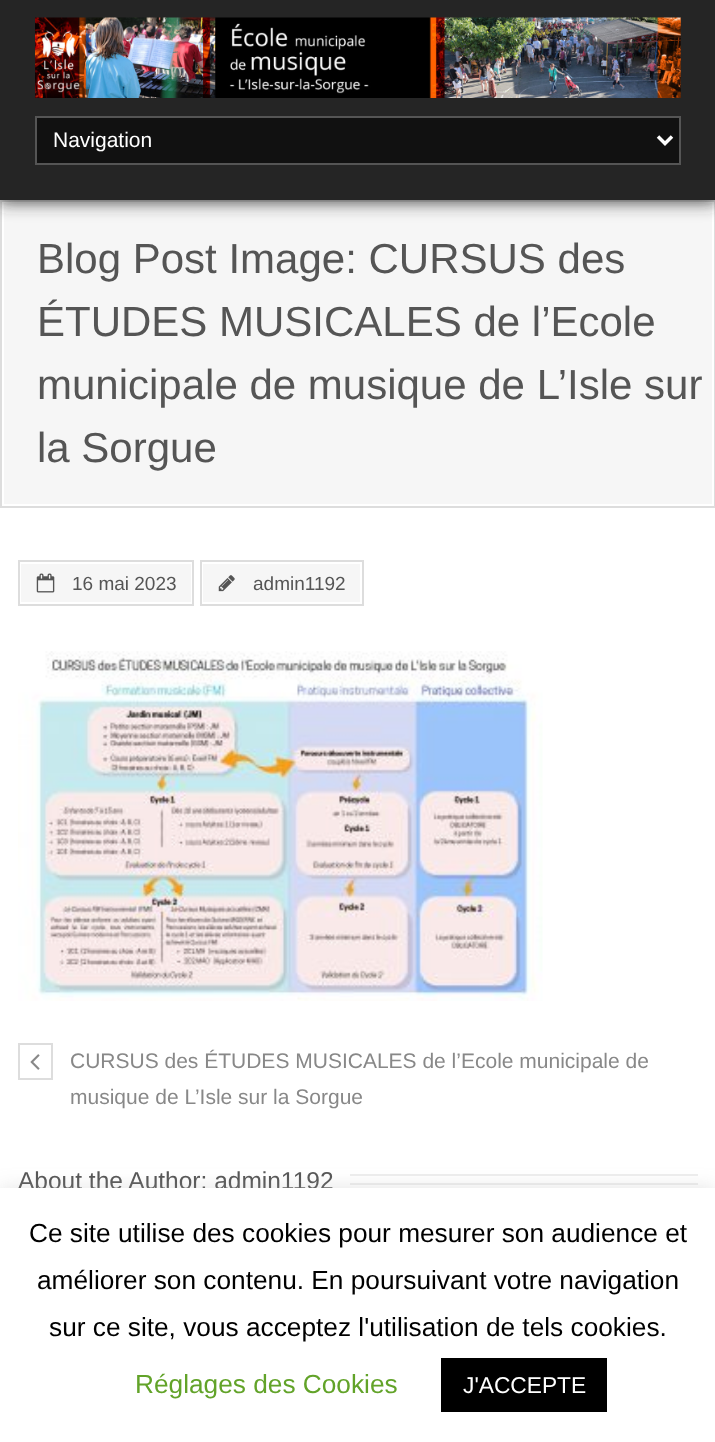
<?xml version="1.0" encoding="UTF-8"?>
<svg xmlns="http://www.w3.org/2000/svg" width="715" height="1442">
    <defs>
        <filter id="blur1" x="-50%" y="-200%" width="200%" height="500%"><feGaussianBlur stdDeviation="9"/></filter>
    </defs>
    <rect width="100%" height="100%" fill="#FFFFFF"/>
    <rect x="4" y="203" width="708" height="301" fill="#F6F6F6"/>
    <rect x="1" y="201" width="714" height="306" fill="none" stroke="#DDDDDD" stroke-width="2"/>
    <rect x="-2" y="-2" width="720" height="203" fill="#333333" filter="url(#blur1)"/>
    <rect x="0" y="0" width="715" height="200" fill="#252525"/>
    <image x="35" y="17" width="646" height="81" href="img_01.png"/>
    <rect x="36" y="117" width="644" height="47" fill="#111111" stroke="#555555" stroke-width="2"/>
    <path d="M 658 136.5 L 665 143.5 L 672 136.5" fill="none" stroke="#FFFFFF" stroke-width="3.5"/>
    <text x="53" y="147" font-family="Liberation Sans" font-size="21" fill="#FFFFFF">Navigation</text>
    <text font-family="Liberation Sans" font-size="42" fill="#555555">
        <tspan x="37" y="273">Blog Post Image: CURSUS des</tspan>
        <tspan x="37" y="336">ÉTUDES MUSICALES de l’Ecole</tspan>
        <tspan x="37" y="399">municipale de musique de L’Isle sur</tspan>
        <tspan x="37" y="462">la Sorgue</tspan>
    </text>
    <rect x="21" y="564" width="170" height="38" fill="#F6F6F6"/>
    <rect x="19" y="561" width="174" height="44" fill="none" stroke="#DDDDDD" stroke-width="2"/>
    <image x="36" y="573" width="19" height="20" href="img_02.png"/>
    <text x="72" y="590" font-family="Liberation Sans" font-size="19" fill="#555555">16 mai 2023</text>
    <rect x="203" y="564" width="157" height="38" fill="#F6F6F6"/>
    <rect x="201" y="561" width="162" height="44" fill="none" stroke="#DDDDDD" stroke-width="2"/>
    <image x="218" y="575" width="17" height="17" href="img_03.png"/>
    <text x="253" y="590" font-family="Liberation Sans" font-size="19" fill="#555555">admin1192</text>
    <image x="18" y="651" width="525" height="350" href="img_04.png"/>
    <rect x="19" y="1044" width="33" height="35" fill="none" stroke="#DDDDDD" stroke-width="2"/>
    <image x="30" y="1054" width="10" height="16" href="img_05.png"/>
    <text font-family="Liberation Sans" font-size="21" fill="#888888">
        <tspan x="70" y="1068">CURSUS des ÉTUDES MUSICALES de l’Ecole municipale de</tspan>
        <tspan x="70" y="1104">musique de L’Isle sur la Sorgue</tspan>
    </text>
    <text x="18" y="1189" font-family="Liberation Sans" font-size="24.5" fill="#555555">About the Author: admin1192</text>
    <rect x="350" y="1174" width="348" height="2" fill="#EEEEEE"/>
    <rect x="350" y="1183" width="348" height="2" fill="#EEEEEE"/>
    <rect x="0" y="1187" width="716" height="253" fill="#ACABAB" fill-opacity="0.3" filter="url(#blur1)"/>
    <rect x="0" y="1188" width="715" height="254" fill="#FFFFFF"/>
    <text x="29" y="1242" font-family="Liberation Sans" font-size="26.25" fill="#000000">Ce site utilise des cookies pour mesurer son audience et</text>
    <text x="37" y="1289" font-family="Liberation Sans" font-size="26.25" fill="#000000">améliorer son contenu. En poursuivant votre navigation</text>
    <text x="49" y="1336" font-family="Liberation Sans" font-size="26.25" fill="#000000">sur ce site, vous acceptez l'utilisation de tels cookies.</text>
    <text x="135" y="1393" font-family="Liberation Sans" font-size="26.25" fill="#62A329">Réglages des Cookies</text>
    <rect x="441" y="1358" width="166" height="54" fill="#000000"/>
    <text x="463" y="1393" font-family="Liberation Sans" font-size="22.75" fill="#FFFFFF">J'ACCEPTE</text>
</svg>
